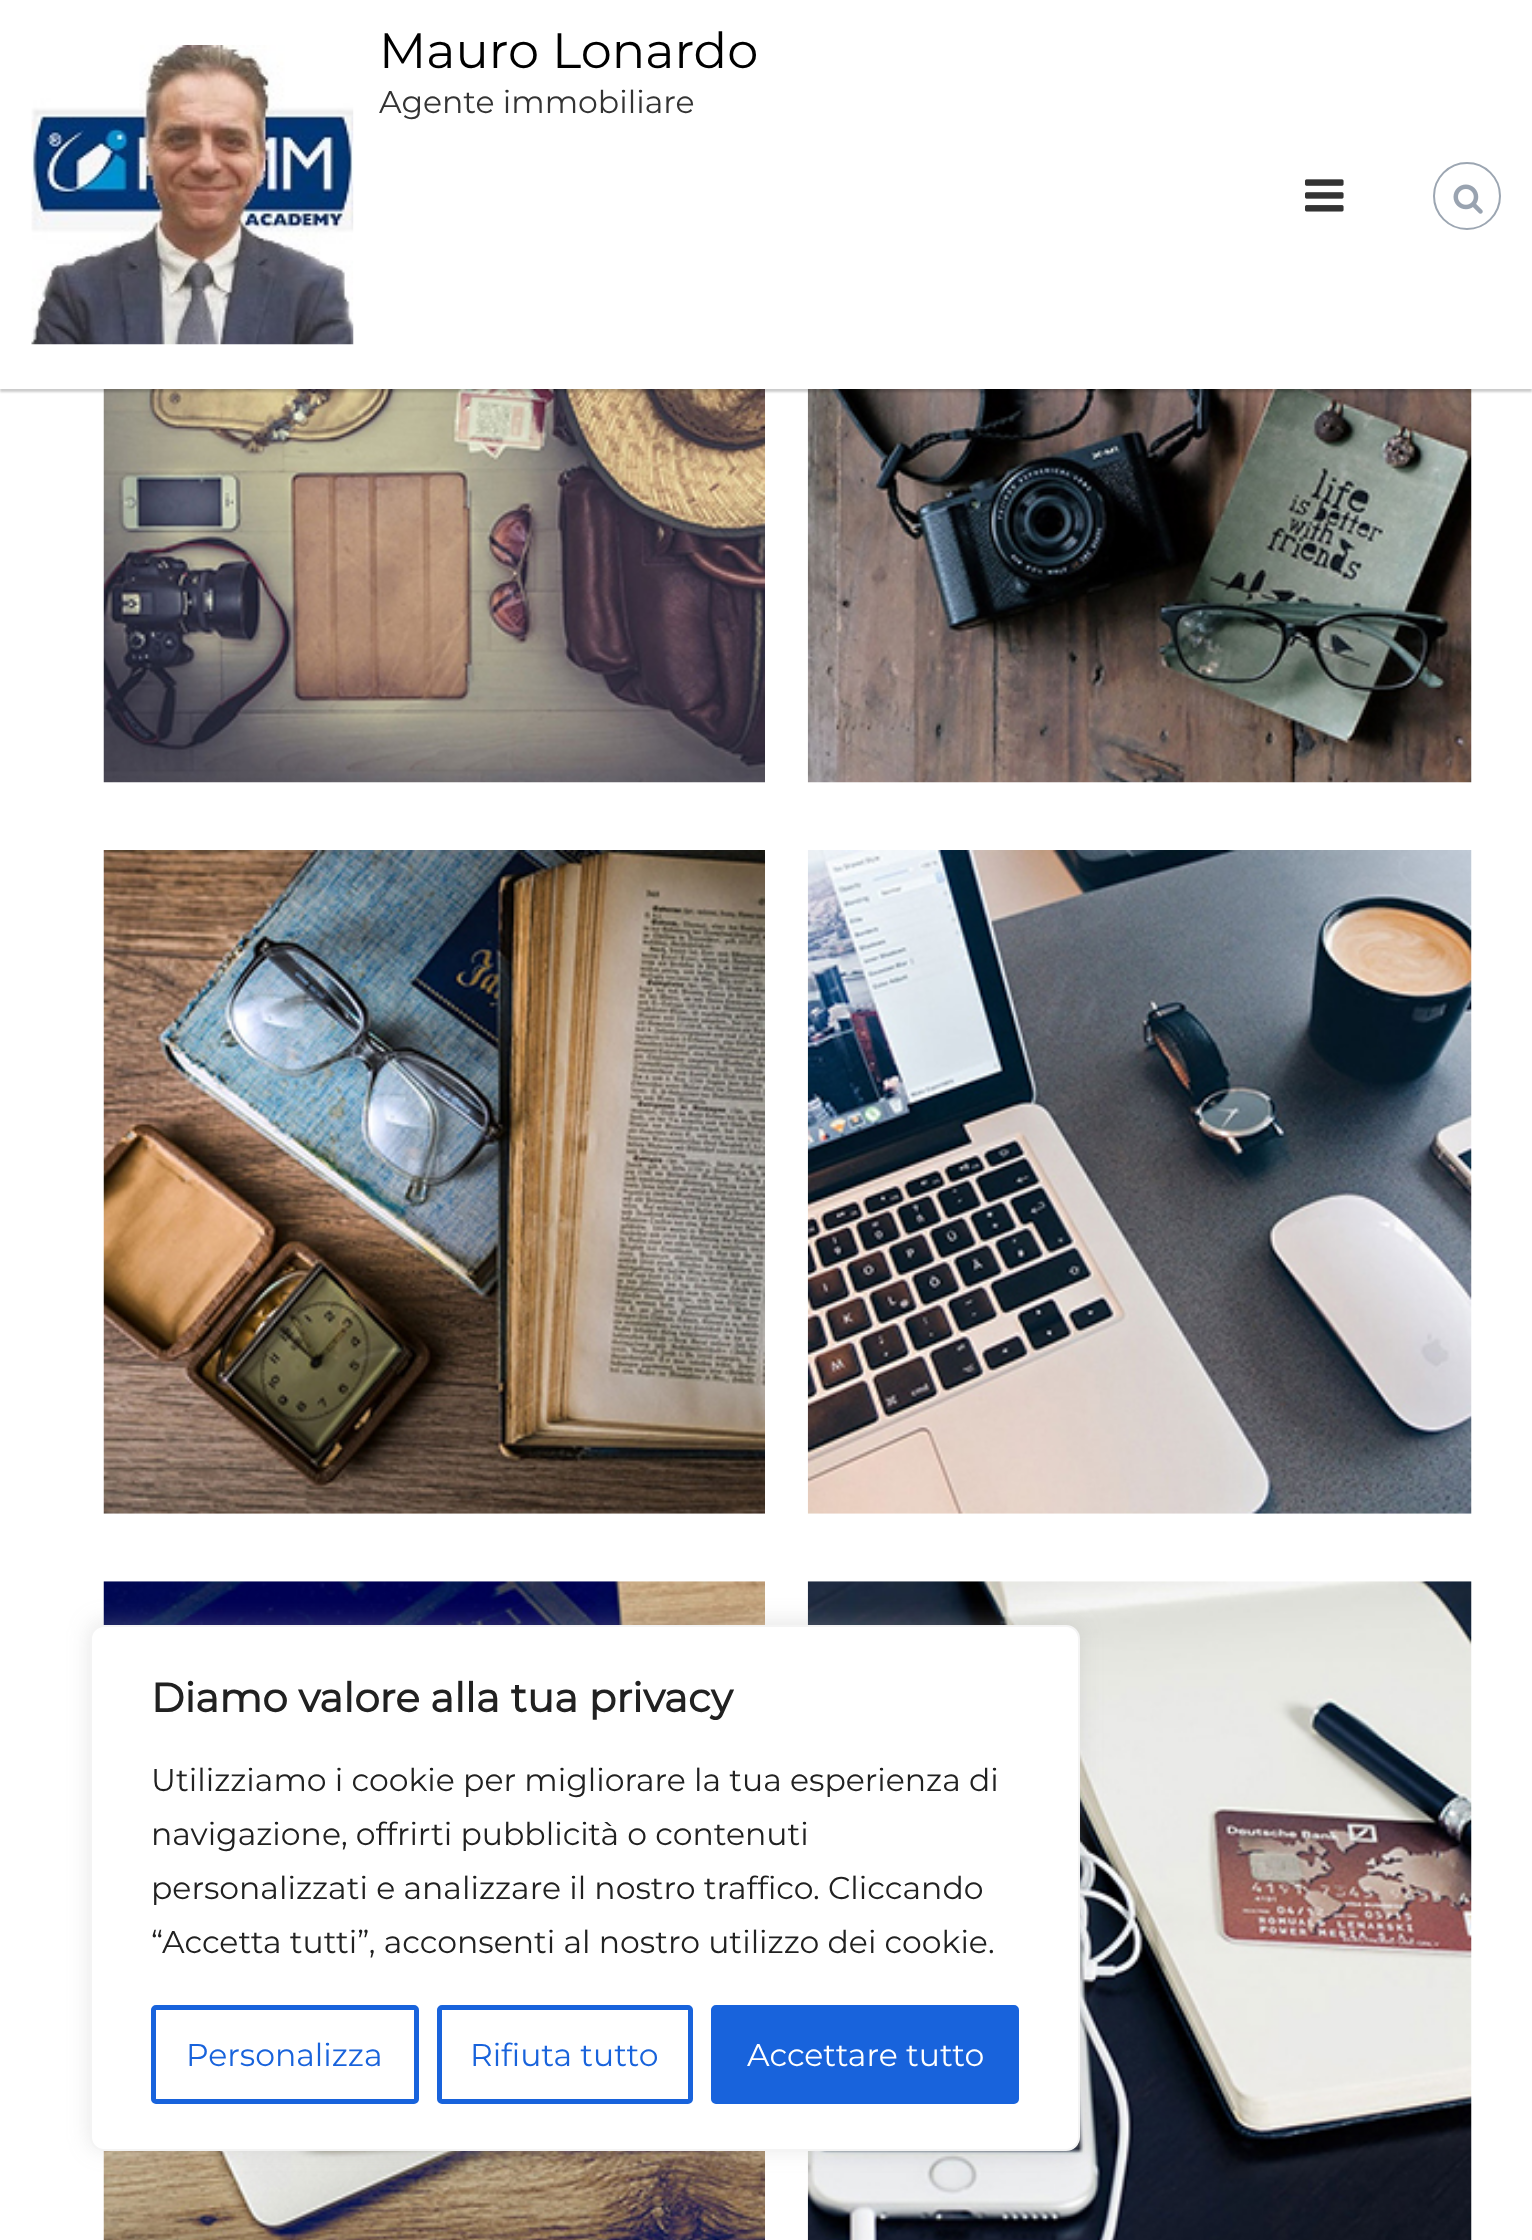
<?xml version="1.0" encoding="UTF-8"?>
<svg xmlns="http://www.w3.org/2000/svg" width="1532" height="2240">
    <defs>
        <filter id="blur1" x="-50%" y="-200%" width="200%" height="500%"><feGaussianBlur stdDeviation="1"/></filter>
        <filter id="blur2" x="-50%" y="-200%" width="200%" height="500%"><feGaussianBlur stdDeviation="11"/></filter>
    </defs>
    <rect width="100%" height="100%" fill="#FFFFFF"/>
    <image x="103" y="389" width="662" height="394" href="img_04.png"/>
    <image x="807" y="389" width="665" height="394" href="img_05.png"/>
    <rect x="0" y="2" width="1532" height="390" fill="#000000" fill-opacity="0.2" filter="url(#blur1)"/>
    <rect x="0" y="0" width="1532" height="389" fill="#FFFFFF"/>
    <image x="31" y="45" width="323" height="300" href="img_01.png"/>
    <text x="379" y="68" font-family="Montserrat" font-size="49.5" fill="#000000">Mauro Lonardo</text>
    <text x="379" y="113" font-family="Montserrat" font-size="31.5" fill="#333333">Agente immobiliare</text>
    <image x="1305" y="179" width="39" height="33" href="img_02.png"/>
    <circle cx="1467" cy="196" r="33" fill="none" stroke="#9CA6B2" stroke-width="2"/>
    <image x="1453" y="184" width="30" height="30" href="img_03.png"/>
    <image x="103" y="850" width="662" height="664" href="img_06.png"/>
    <image x="807" y="850" width="665" height="664" href="img_07.png"/>
    <image x="103" y="1581" width="662" height="659" href="img_08.png"/>
    <image x="807" y="1581" width="665" height="659" href="img_09.png"/>
    <rect x="90" y="1622" width="990" height="527" rx="14" fill="#ACABAB" fill-opacity="0.3" filter="url(#blur2)"/>
    <rect x="91" y="1626" width="988" height="524" rx="13" fill="#FFFFFF" stroke="#F4F4F4" stroke-width="2"/>
    <text x="151" y="1712" font-family="Montserrat" font-size="40.5" font-weight="700" fill="#212121">Diamo valore alla tua privacy</text>
    <text font-family="Montserrat" font-size="31.5" fill="#212121">
        <tspan x="151" y="1791">Utilizziamo i cookie per migliorare la tua esperienza di</tspan>
        <tspan x="151" y="1845">navigazione, offrirti pubblicità o contenuti</tspan>
        <tspan x="151" y="1899">personalizzati e analizzare il nostro traffico. Cliccando</tspan>
        <tspan x="151" y="1953">“Accetta tutti”, acconsenti al nostro utilizzo dei cookie.</tspan>
    </text>
    <rect x="153.5" y="2007.5" width="263" height="94" rx="2.5" fill="none" stroke="#1863DC" stroke-width="5"/>
    <text x="186" y="2066" font-family="Montserrat" font-size="31.5" fill="#1863DC">Personalizza</text>
    <rect x="439.5" y="2007.5" width="251" height="94" rx="2.5" fill="none" stroke="#1863DC" stroke-width="5"/>
    <text x="470" y="2066" font-family="Montserrat" font-size="31.5" fill="#1863DC">Rifiuta tutto</text>
    <rect x="713.5" y="2007.5" width="303" height="94" rx="2.5" fill="#1863DC" stroke="#1863DC" stroke-width="5"/>
    <text x="747" y="2066" font-family="Montserrat" font-size="31.5" fill="#FFFFFF">Accettare tutto</text>
</svg>
